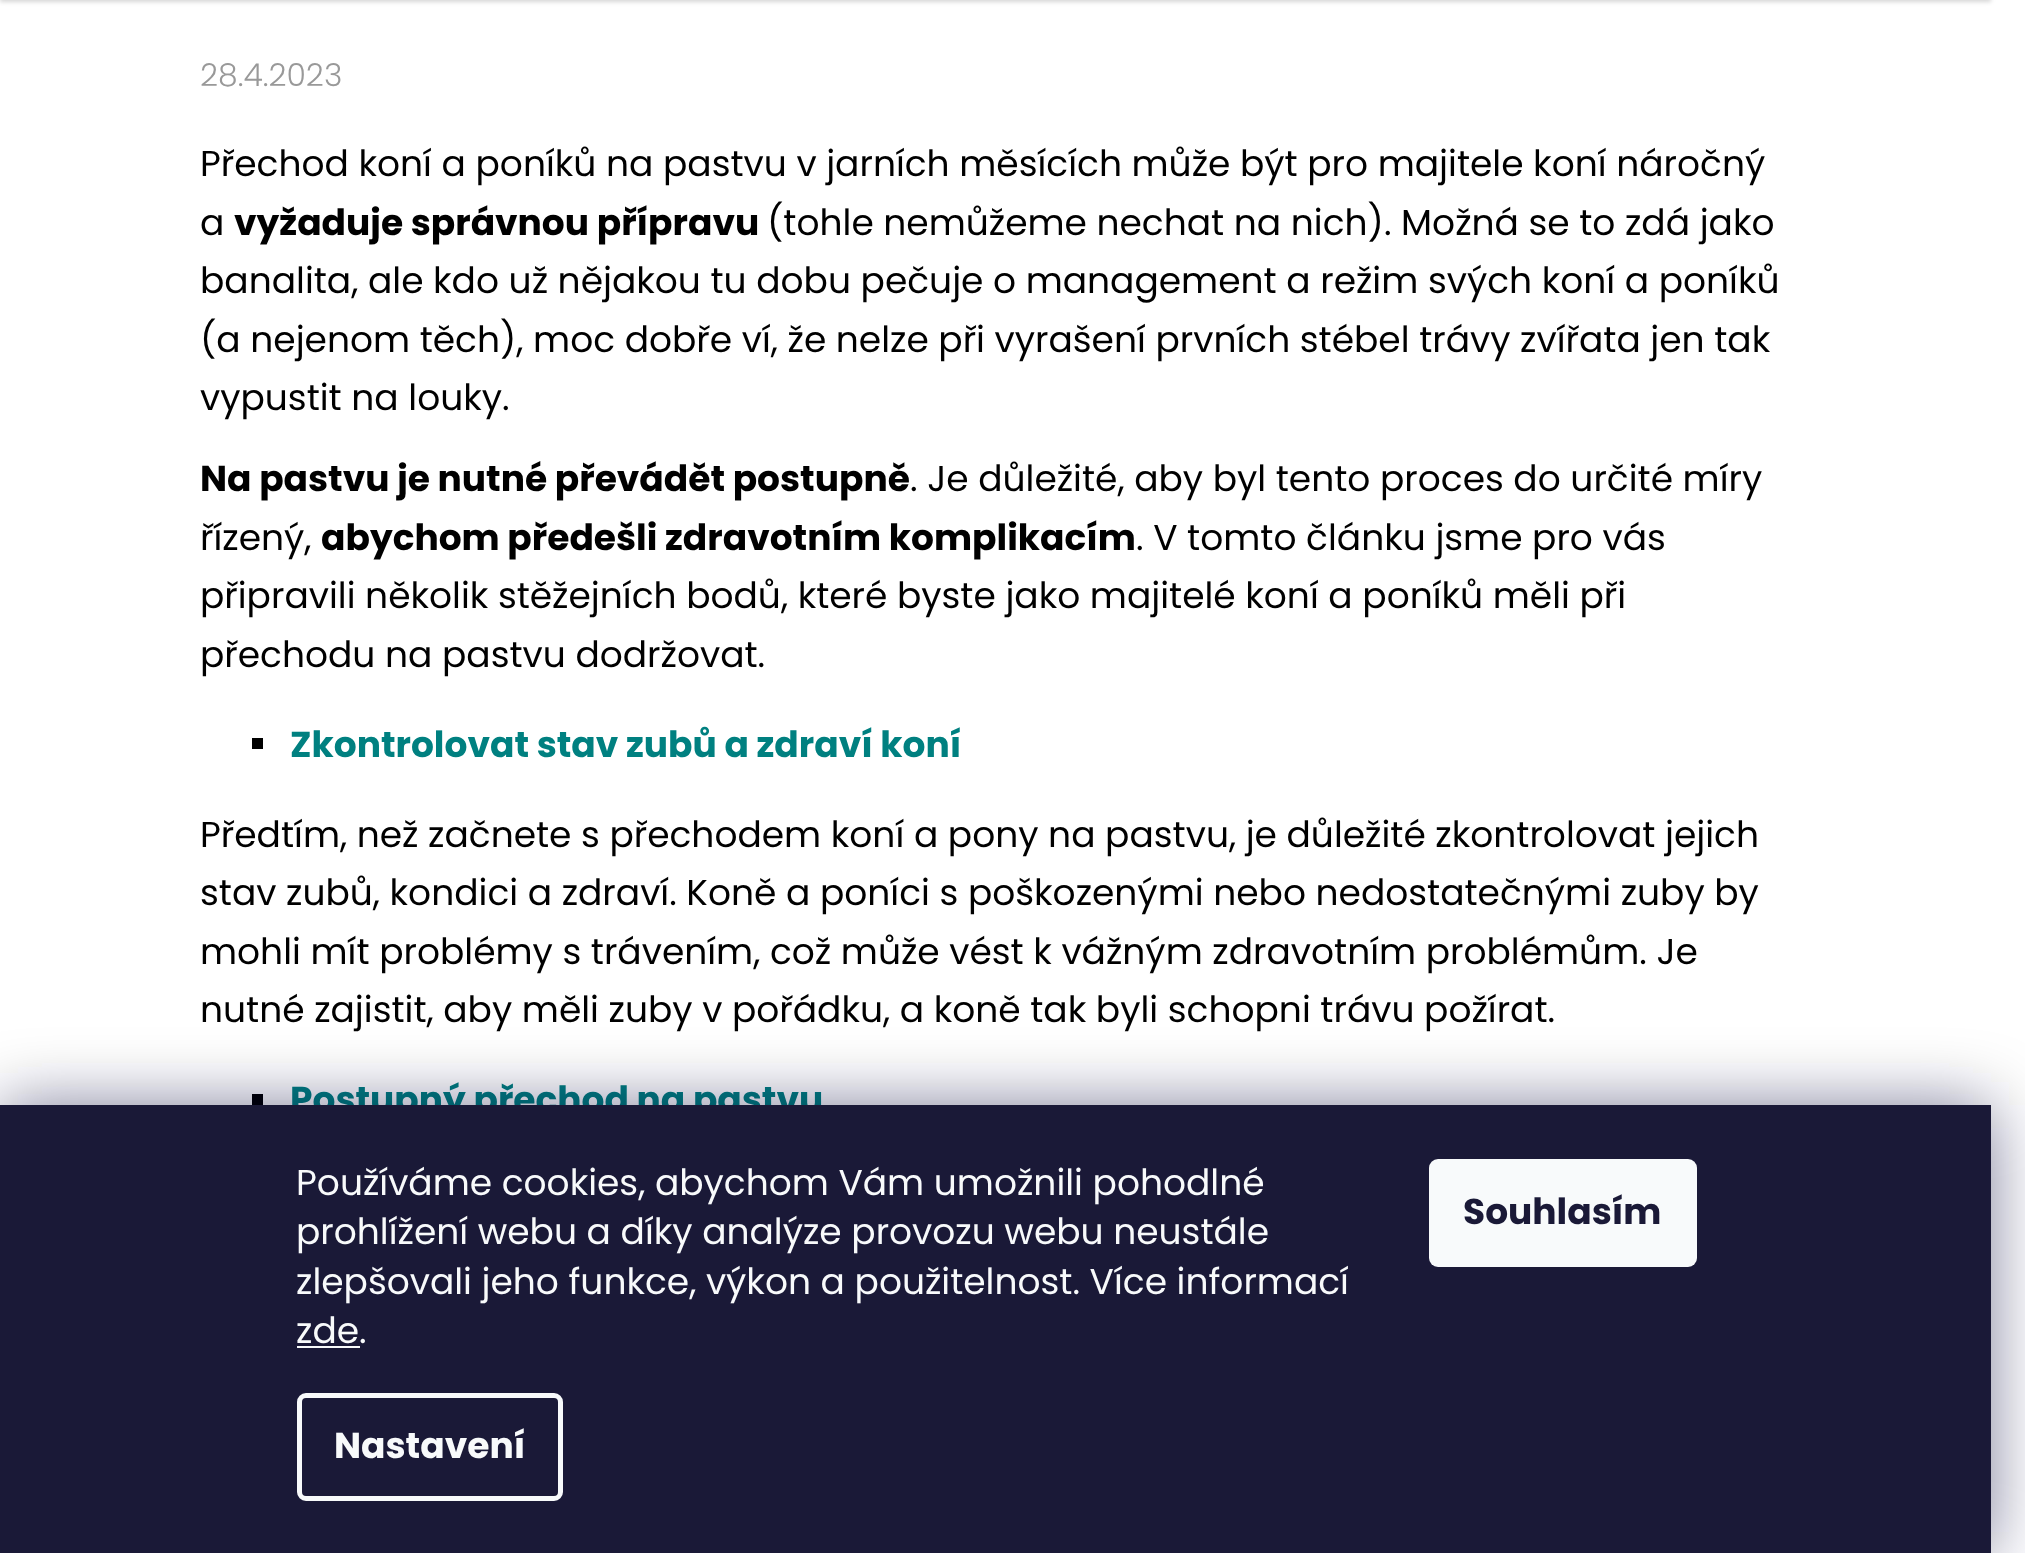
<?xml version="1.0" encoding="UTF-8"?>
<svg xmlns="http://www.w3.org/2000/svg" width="2025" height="1553">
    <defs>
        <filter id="blur1" x="-50%" y="-200%" width="200%" height="500%"><feGaussianBlur stdDeviation="2"/></filter>
        <filter id="blur2" x="-50%" y="-200%" width="200%" height="500%"><feGaussianBlur stdDeviation="34"/></filter>
    </defs>
    <rect width="100%" height="100%" fill="#FFFFFF"/>
    <rect x="0" y="-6" width="1991" height="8" fill="#000000" fill-opacity="0.16" filter="url(#blur1)"/>
    <text x="200" y="86" font-family="Poppins" font-size="31.5" font-weight="300" fill="#999999">28.4.2023</text>
    <text font-family="Poppins" font-size="36" fill="#000000">
        <tspan x="200" y="176">Přechod koní a poníků na pastvu v jarních měsících může být pro majitele koní náročný</tspan>
        <tspan x="200" y="235">a</tspan>
    </text>
    <text x="234" y="235" font-family="Poppins" font-size="36" font-weight="700" fill="#000000">vyžaduje správnou přípravu</text>
    <text x="767" y="235" font-family="Poppins" font-size="36" fill="#000000">(tohle nemůžeme nechat na nich). Možná se to zdá jako</text>
    <text font-family="Poppins" font-size="36" fill="#000000">
        <tspan x="200" y="293">banalita, ale kdo už nějakou tu dobu pečuje o management a režim svých koní a poníků</tspan>
        <tspan x="200" y="352">(a nejenom těch), moc dobře ví, že nelze při vyrašení prvních stébel trávy zvířata jen tak</tspan>
        <tspan x="200" y="410">vypustit na louky.</tspan>
    </text>
    <text x="200" y="491" font-family="Poppins" font-size="36" font-weight="700" fill="#000000">Na pastvu je nutné převádět postupně</text>
    <text x="910" y="491" font-family="Poppins" font-size="36" fill="#000000">. Je důležité, aby byl tento proces do určité míry</text>
    <text x="200" y="550" font-family="Poppins" font-size="36" fill="#000000">řízený,</text>
    <text x="321" y="550" font-family="Poppins" font-size="36" font-weight="700" fill="#000000">abychom předešli zdravotním komplikacím</text>
    <text x="1136" y="550" font-family="Poppins" font-size="36" fill="#000000">. V tomto článku jsme pro vás</text>
    <text font-family="Poppins" font-size="36" fill="#000000">
        <tspan x="200" y="608">připravili několik stěžejních bodů, které byste jako majitelé koní a poníků měli při</tspan>
        <tspan x="200" y="667">přechodu na pastvu dodržovat.</tspan>
    </text>
    <rect x="252" y="738" width="11" height="11" fill="#000000"/>
    <text x="290" y="757" font-family="Poppins" font-size="36" font-weight="700" fill="#008080">Zkontrolovat stav zubů a zdraví koní</text>
    <text font-family="Poppins" font-size="36" fill="#000000">
        <tspan x="200" y="847">Předtím, než začnete s přechodem koní a pony na pastvu, je důležité zkontrolovat jejich</tspan>
        <tspan x="200" y="905">stav zubů, kondici a zdraví. Koně a poníci s poškozenými nebo nedostatečnými zuby by</tspan>
        <tspan x="200" y="964">mohli mít problémy s trávením, což může vést k vážným zdravotním problémům. Je</tspan>
        <tspan x="200" y="1022">nutné zajistit, aby měli zuby v pořádku, a koně tak byli schopni trávu požírat.</tspan>
    </text>
    <rect x="252" y="1094" width="11" height="11" fill="#000000"/>
    <text x="290" y="1112" font-family="Poppins" font-size="36" font-weight="700" fill="#008080">Postupný přechod na pastvu</text>
    <rect x="0" y="1105" width="1991" height="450" fill="#1B1939" fill-opacity="0.5" filter="url(#blur2)"/>
    <rect x="0" y="1105" width="1991" height="448" fill="#1A1937"/>
    <text font-family="Poppins" font-size="36" fill="#F8FAFB">
        <tspan x="296" y="1195">Používáme cookies, abychom Vám umožnili pohodlné</tspan>
        <tspan x="296" y="1244">prohlížení webu a díky analýze provozu webu neustále</tspan>
        <tspan x="296" y="1294">zlepšovali jeho funkce, výkon a použitelnost. Více informací</tspan>
        <tspan x="296" y="1343">zde.</tspan>
    </text>
    <rect x="297" y="1346" width="63" height="2" fill="#F8FAFB"/>
    <rect x="299.5" y="1395.5" width="261" height="103" rx="6.5" fill="none" stroke="#F8FAFB" stroke-width="5"/>
    <text x="334" y="1458" font-family="Poppins" font-size="36" font-weight="700" fill="#F8FAFB">Nastavení</text>
    <rect x="1429" y="1159" width="268" height="108" rx="9" fill="#F8FAFB"/>
    <text x="1463" y="1224" font-family="Poppins" font-size="36" font-weight="700" fill="#1A1937">Souhlasím</text>
</svg>
